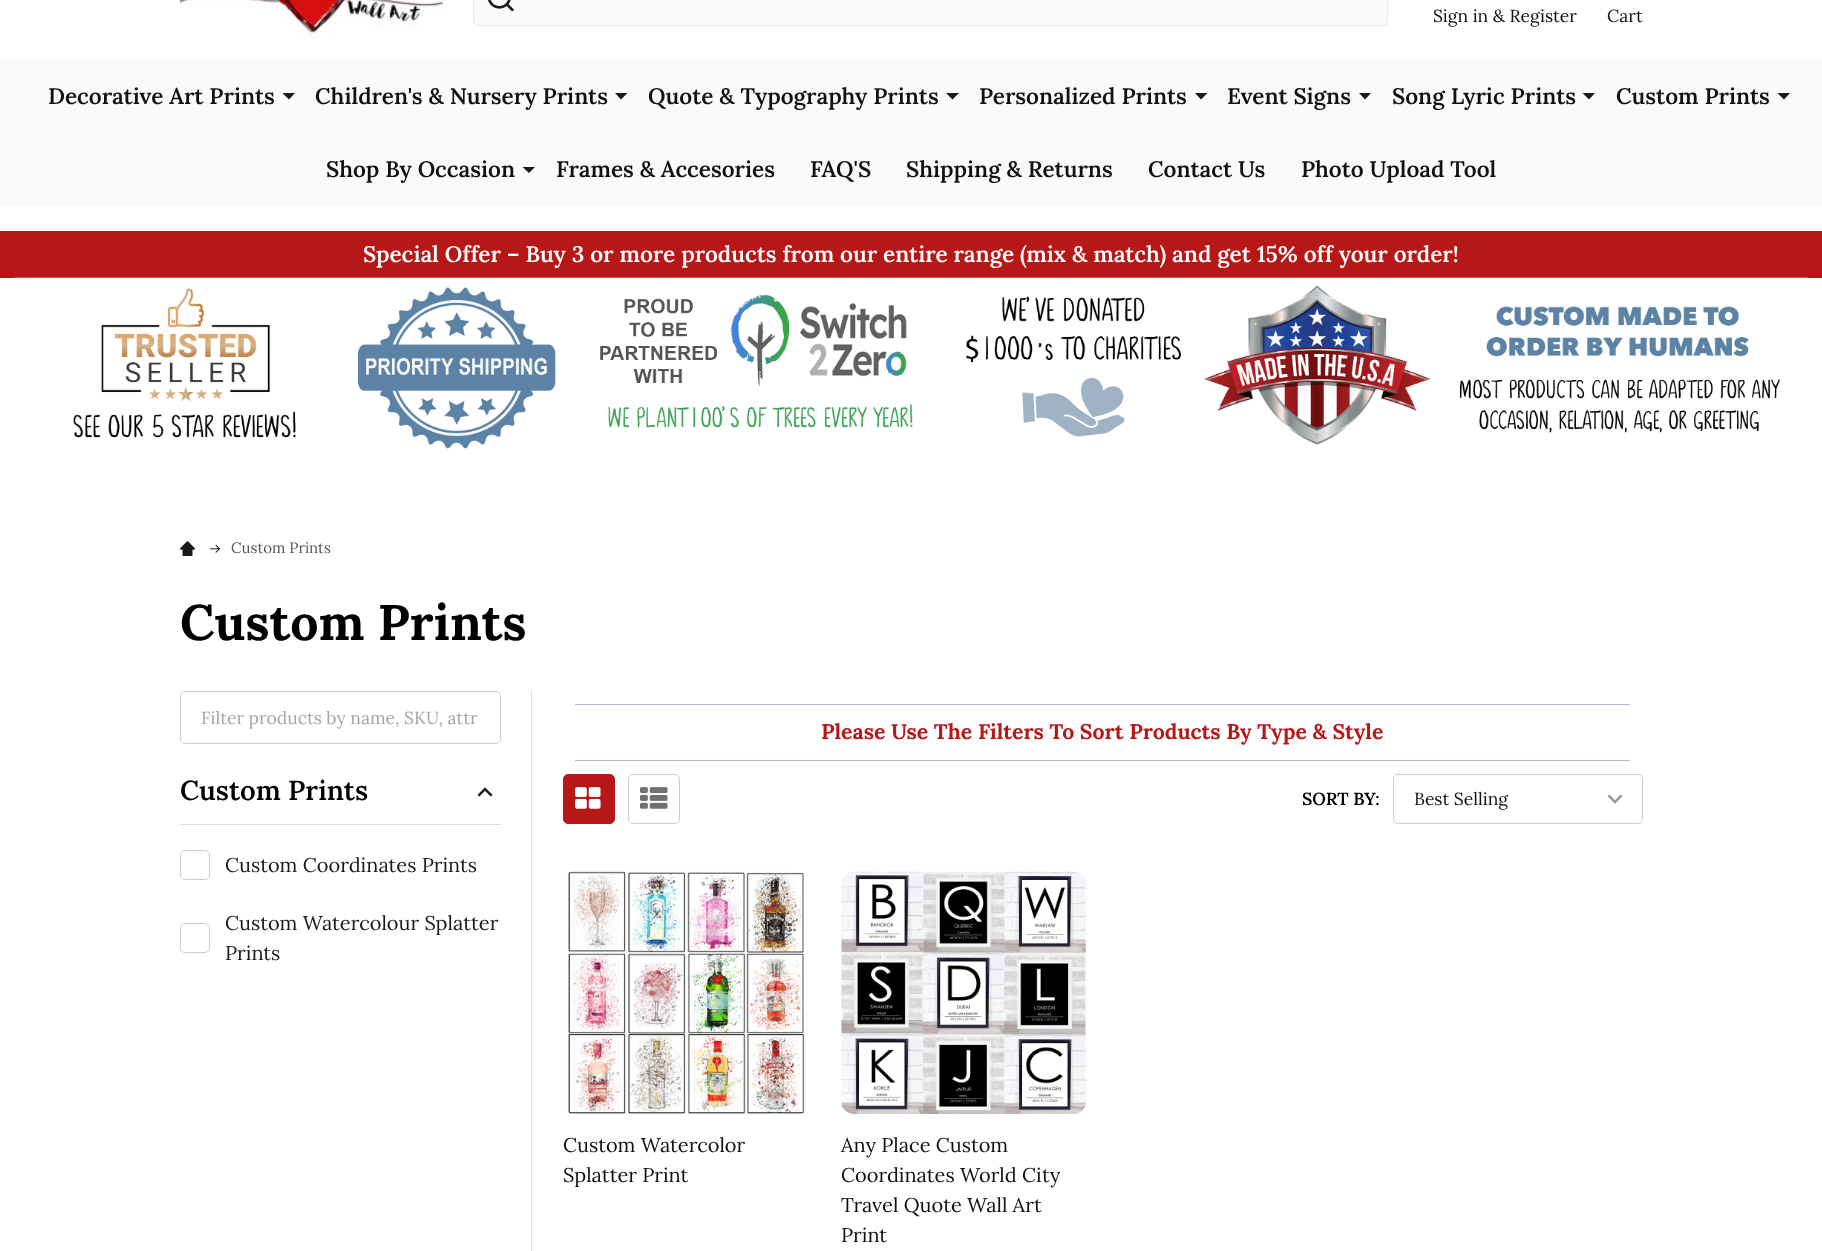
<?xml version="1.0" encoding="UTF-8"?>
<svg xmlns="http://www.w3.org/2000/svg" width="1822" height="1251">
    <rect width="100%" height="100%" fill="#FFFFFF"/>
    <image x="180" y="0" width="263" height="38" href="img_01.png"/>
    <rect x="473.5" y="-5.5" width="914" height="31" rx="4.5" fill="#FAFAFA" stroke="#EAEAEA"/>
    <image x="488" y="0" width="26" height="11" href="img_02.png"/>
    <text x="1433" y="22" font-family="Lora" font-size="17.5" fill="#111111">Sign in &amp; Register</text>
    <text x="1607" y="22" font-family="Lora" font-size="17.5" fill="#111111">Cart</text>
    <rect x="0" y="59" width="1822" height="147" fill="#FAFAFA"/>
    <text x="48" y="104" font-family="Lora" font-size="22.5" font-weight="600" fill="#111111">Decorative Art Prints</text>
    <path d="M 282.5 93 L 289 99.5 L 295 93 Z" fill="#1A1A1A"/>
    <text x="315" y="104" font-family="Lora" font-size="22.5" font-weight="600" fill="#111111">Children's &amp; Nursery Prints</text>
    <path d="M 615 93 L 621 99.5 L 627.5 93 Z" fill="#1A1A1A"/>
    <text x="648" y="104" font-family="Lora" font-size="22.5" font-weight="600" fill="#111111">Quote &amp; Typography Prints</text>
    <path d="M 946 93 L 952.5 99.5 L 959 93 Z" fill="#1A1A1A"/>
    <text x="979" y="104" font-family="Lora" font-size="22.5" font-weight="600" fill="#111111">Personalized Prints</text>
    <path d="M 1195 93 L 1201 99.5 L 1207.5 93 Z" fill="#1A1A1A"/>
    <text x="1227" y="104" font-family="Lora" font-size="22.5" font-weight="600" fill="#111111">Event Signs</text>
    <path d="M 1359 93 L 1365 99.5 L 1371 93 Z" fill="#1A1A1A"/>
    <text x="1392" y="104" font-family="Lora" font-size="22.5" font-weight="600" fill="#111111">Song Lyric Prints</text>
    <path d="M 1582.5 93 L 1589 99.5 L 1595 93 Z" fill="#1A1A1A"/>
    <text x="1616" y="104" font-family="Lora" font-size="22.5" font-weight="600" fill="#111111">Custom Prints</text>
    <path d="M 1777.5 93 L 1784 99.5 L 1790 93 Z" fill="#1A1A1A"/>
    <text x="326" y="177" font-family="Lora" font-size="22.5" font-weight="600" fill="#111111">Shop By Occasion</text>
    <path d="M 522.5 167 L 529 173 L 535 167 Z" fill="#1A1A1A"/>
    <text x="556" y="177" font-family="Lora" font-size="22.5" font-weight="600" fill="#111111">Frames &amp; Accesories</text>
    <text x="810" y="177" font-family="Lora" font-size="22.5" font-weight="600" fill="#111111">FAQ'S</text>
    <text x="906" y="177" font-family="Lora" font-size="22.5" font-weight="600" fill="#111111">Shipping &amp; Returns</text>
    <text x="1148" y="177" font-family="Lora" font-size="22.5" font-weight="600" fill="#111111">Contact Us</text>
    <text x="1301" y="177" font-family="Lora" font-size="22.5" font-weight="600" fill="#111111">Photo Upload Tool</text>
    <rect x="0" y="231" width="1822" height="47" fill="#B61818"/>
    <text x="363" y="262" font-family="Lora" font-size="22.5" font-weight="600" fill="#FFFFFF">Special Offer – Buy 3 or more products from our entire range (mix &amp; match) and get 15% off your order!</text>
    <image x="15" y="277" width="1793" height="172" href="img_03.png"/>
    <image x="180" y="541" width="15" height="15" href="img_04.png"/>
    <image x="210" y="544" width="10" height="9" href="img_05.png"/>
    <text x="231" y="553" font-family="Lora" font-size="15" fill="#555555">Custom Prints</text>
    <text x="180" y="640" font-family="Lora" font-size="50" font-weight="700" fill="#000000">Custom Prints</text>
    <rect x="180.5" y="691.5" width="320" height="52" rx="4.5" fill="none" stroke="#CCCCCC"/>
    <rect x="181" y="693" width="319" height="50" rx="5" fill="#FFFFFF"/>
    <text x="201" y="724" font-family="Lora" font-size="17.5" fill="#A5A5A5">Filter products by name, SKU, attr</text>
    <rect x="180" y="824" width="321" height="1" fill="#DDDDDD"/>
    <text x="180" y="800" font-family="Lora" font-size="27.5" font-weight="600" fill="#000000">Custom Prints</text>
    <image x="477" y="787" width="16" height="10" href="img_06.png"/>
    <rect x="180.5" y="850.5" width="29" height="29" rx="4.5" fill="none" stroke="#CCCCCC"/>
    <text x="225" y="872" font-family="Lora" font-size="20" fill="#1A1A1A">Custom Coordinates Prints</text>
    <rect x="180.5" y="923.5" width="29" height="29" rx="4.5" fill="none" stroke="#CCCCCC"/>
    <text font-family="Lora" font-size="20" fill="#1A1A1A">
        <tspan x="225" y="930">Custom Watercolour Splatter</tspan>
        <tspan x="225" y="960">Prints</tspan>
    </text>
    <rect x="531" y="691" width="1" height="560" fill="#DDDDDD"/>
    <rect x="575" y="704" width="1055" height="1" fill="#B4BAD1"/>
    <text x="821" y="739" font-family="Lora" font-size="21.25" font-weight="700" fill="#B61818">Please Use The Filters To Sort Products By Type &amp; Style</text>
    <rect x="575" y="760" width="1055" height="1" fill="#B4BAD1"/>
    <rect x="563.5" y="774.5" width="51" height="49" rx="4.5" fill="#B61818" stroke="#B61818"/>
    <image x="575" y="787" width="26" height="22" href="img_07.png"/>
    <rect x="628.5" y="774.5" width="51" height="49" rx="4.5" fill="none" stroke="#CCCCCC"/>
    <image x="640" y="787" width="28" height="22" href="img_08.png"/>
    <text x="1302" y="805" font-family="Lora" font-size="17.5" font-weight="600" fill="#000000">SORT BY:</text>
    <image x="1607" y="794" width="16" height="10" href="img_09.png"/>
    <rect x="1393.5" y="774.5" width="249" height="49" rx="4.5" fill="none" stroke="#CCCCCC"/>
    <text x="1414" y="805" font-family="Lora" font-size="17.5" fill="#111111">Best Selling</text>
    <image x="566" y="870" width="242" height="245" href="img_10.png"/>
    <text font-family="Lora" font-size="20" fill="#111111">
        <tspan x="563" y="1152">Custom Watercolor</tspan>
        <tspan x="563" y="1182">Splatter Print</tspan>
    </text>
    <image x="841" y="871" width="245" height="243" href="img_11.png"/>
    <text font-family="Lora" font-size="20" fill="#111111">
        <tspan x="841" y="1152">Any Place Custom</tspan>
        <tspan x="841" y="1182">Coordinates World City</tspan>
        <tspan x="841" y="1212">Travel Quote Wall Art</tspan>
        <tspan x="841" y="1242">Print</tspan>
    </text>
</svg>
